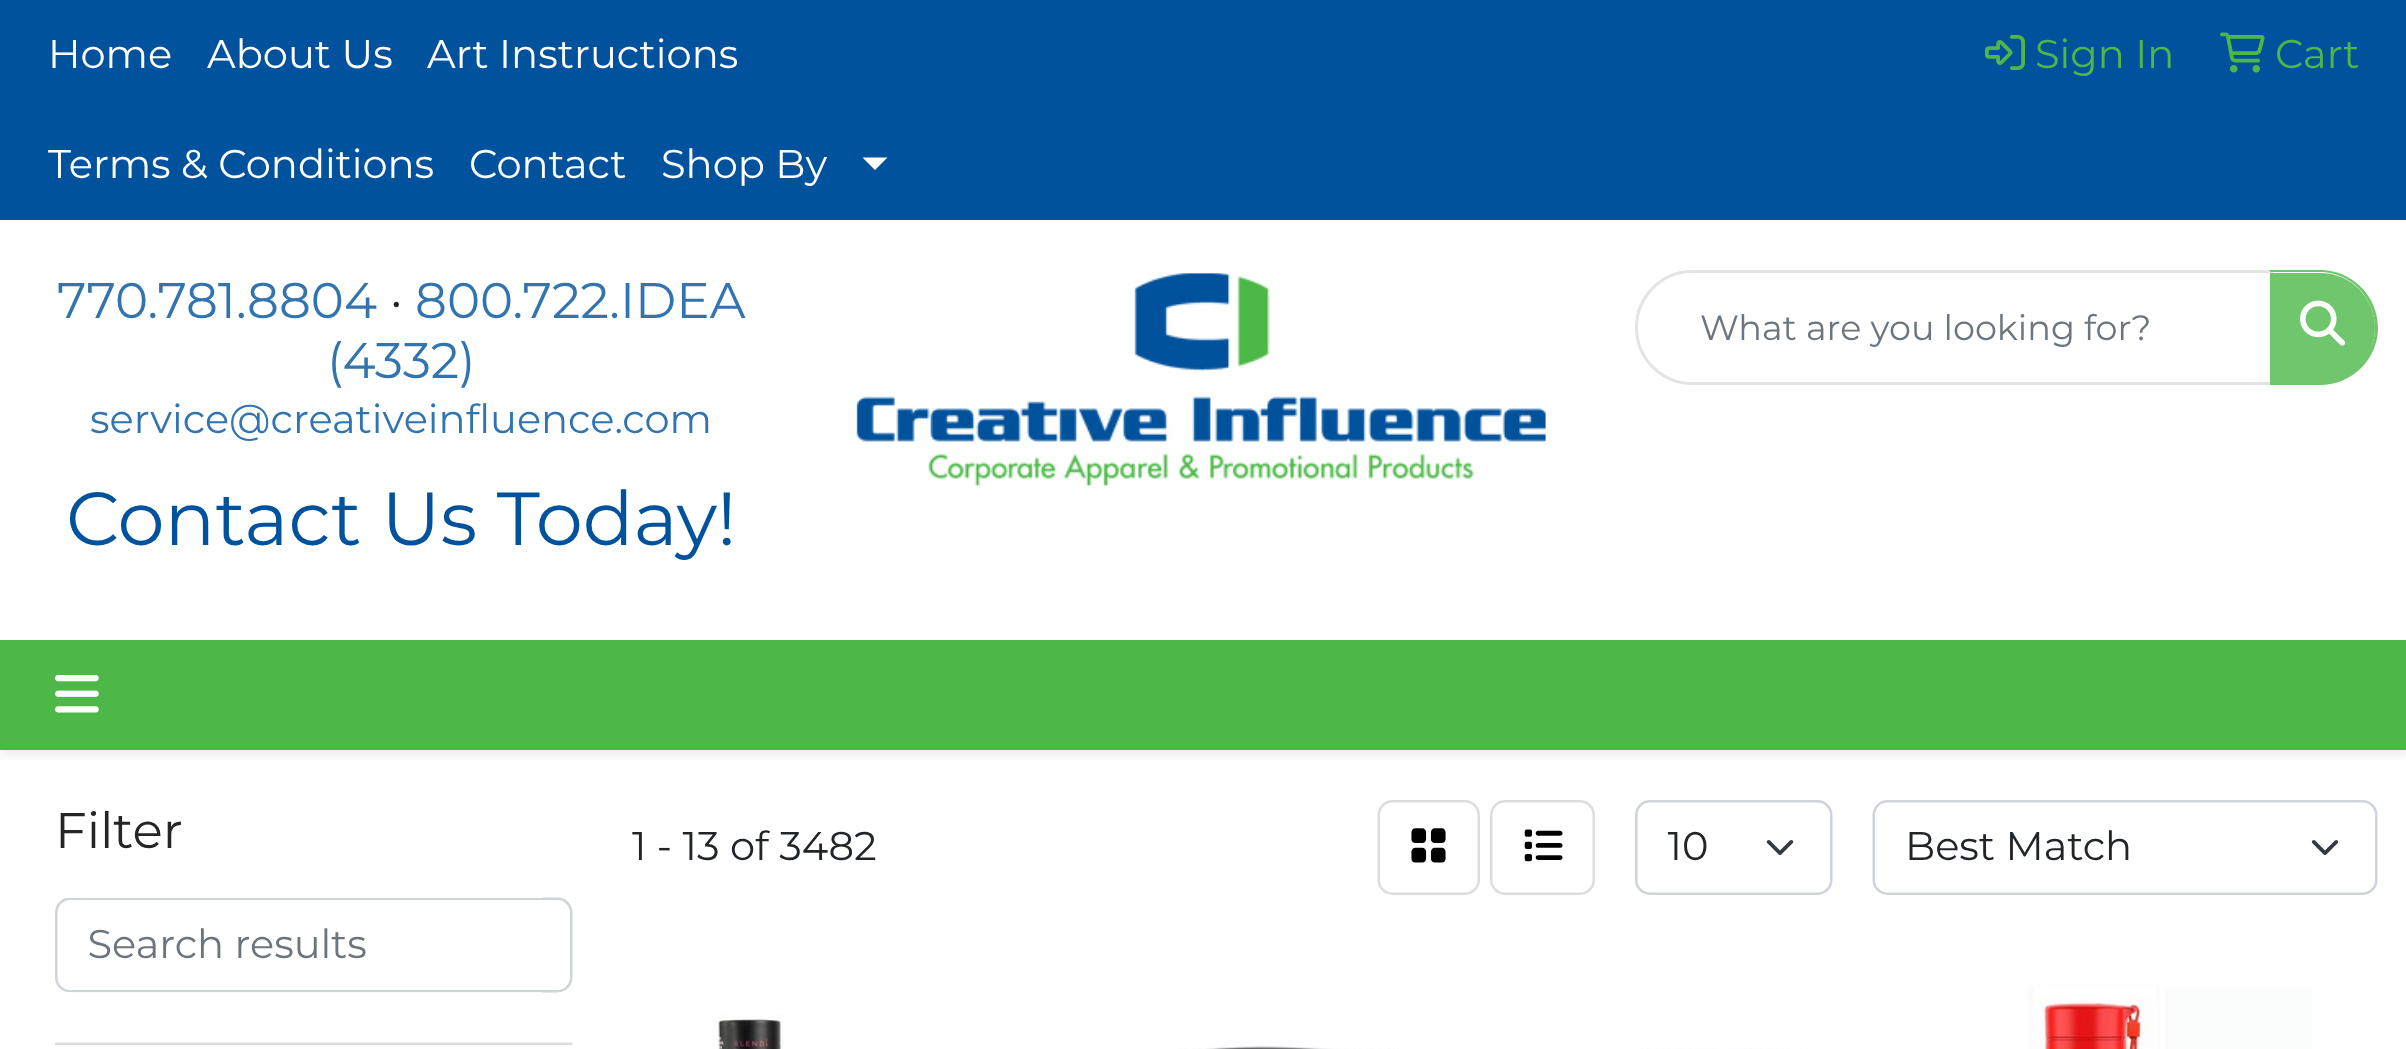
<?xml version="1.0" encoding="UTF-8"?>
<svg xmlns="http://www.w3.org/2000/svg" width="2406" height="1049">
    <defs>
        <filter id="blur1" x="-50%" y="-200%" width="200%" height="500%"><feGaussianBlur stdDeviation="5"/></filter>
    </defs>
    <rect width="100%" height="100%" fill="#FFFFFF"/>
    <rect x="0" y="0" width="2406" height="220" fill="#00529C"/>
    <text x="48" y="68" font-family="Montserrat" font-size="40" font-weight="100" fill="#FFFFFF">Home</text>
    <text x="207" y="68" font-family="Montserrat" font-size="40" font-weight="100" fill="#FFFFFF">About Us</text>
    <text x="427" y="68" font-family="Montserrat" font-size="40" font-weight="100" fill="#FFFFFF">Art Instructions</text>
    <text x="48" y="178" font-family="Montserrat" font-size="40" font-weight="100" fill="#FFFFFF">Terms &amp; Conditions</text>
    <text x="469" y="178" font-family="Montserrat" font-size="40" font-weight="100" fill="#FFFFFF">Contact</text>
    <text x="661" y="178" font-family="Montserrat" font-size="40" font-weight="100" fill="#FFFFFF">Shop By</text>
    <path d="M 862.5 157.5 H 887.5 L 875 170 Z" fill="#FFFFFF"/>
    <image x="1985" y="35" width="40" height="35" href="img_01.png"/>
    <text x="2035" y="68" font-family="Montserrat" font-size="40" font-weight="100" fill="#4DB848">Sign In</text>
    <image x="2220" y="32" width="45" height="41" href="img_02.png"/>
    <text x="2275" y="68" font-family="Montserrat" font-size="40" font-weight="100" fill="#4DB848">Cart</text>
    <text x="57" y="318" font-family="Montserrat" font-size="50" font-weight="100" fill="#3274AF">770.781.8804</text>
    <text x="390" y="318" font-family="Montserrat" font-size="50" font-weight="100" fill="#212529">·</text>
    <text x="415" y="318" font-family="Montserrat" font-size="50" font-weight="100" fill="#3274AF">800.722.IDEA</text>
    <text x="327" y="378" font-family="Montserrat" font-size="50" font-weight="100" fill="#3274AF">(4332)</text>
    <text x="90" y="433" font-family="Montserrat" font-size="40" font-weight="100" fill="#3274AF">service@creativeinfluence.com</text>
    <text x="66" y="545" font-family="Montserrat" font-size="75" font-weight="100" fill="#00529C">Contact Us Today!</text>
    <image x="856" y="273" width="690" height="213" href="img_03.png"/>
    <path d="M 1692.5 271.5 H 2271.5 V 383.5 H 1692.5 C 1661.5 383.5 1636.5 358.5 1636.5 327.5 C 1636.5 296.5 1661.5 271.5 1692.5 271.5 Z" fill="none" stroke="#E4E4E4" stroke-width="3"/>
    <text x="1700" y="340" font-family="Montserrat" font-size="35" font-weight="100" fill="#6C757D">What are you looking for?</text>
    <path d="M 2270 273 H 2320 C 2350.5 273 2375 297.5 2375 328 C 2375 358.5 2350.5 383 2320 383 H 2270 Z" fill="#70C66C"/>
    <path d="M 2270 270 H 2320 C 2352 270 2378 296 2378 328 C 2378 359 2352 385 2320 385 H 2270 Z M 2270 272 H 2320 C 2350 272 2375 297 2375 328 C 2375 358 2350 382 2320 382 H 2270 Z" fill="#70C66C" fill-rule="evenodd"/>
    <image x="2300" y="300" width="45" height="46" href="img_04.png"/>
    <rect x="0" y="645" width="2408" height="110" fill="#000000" fill-opacity="0.07" filter="url(#blur1)"/>
    <rect x="0" y="640" width="2406" height="110" fill="#4DB848"/>
    <image x="55" y="675" width="44" height="38" href="img_05.png"/>
    <image x="55" y="800" width="2323" height="249" href="img_06.png"/>
</svg>
